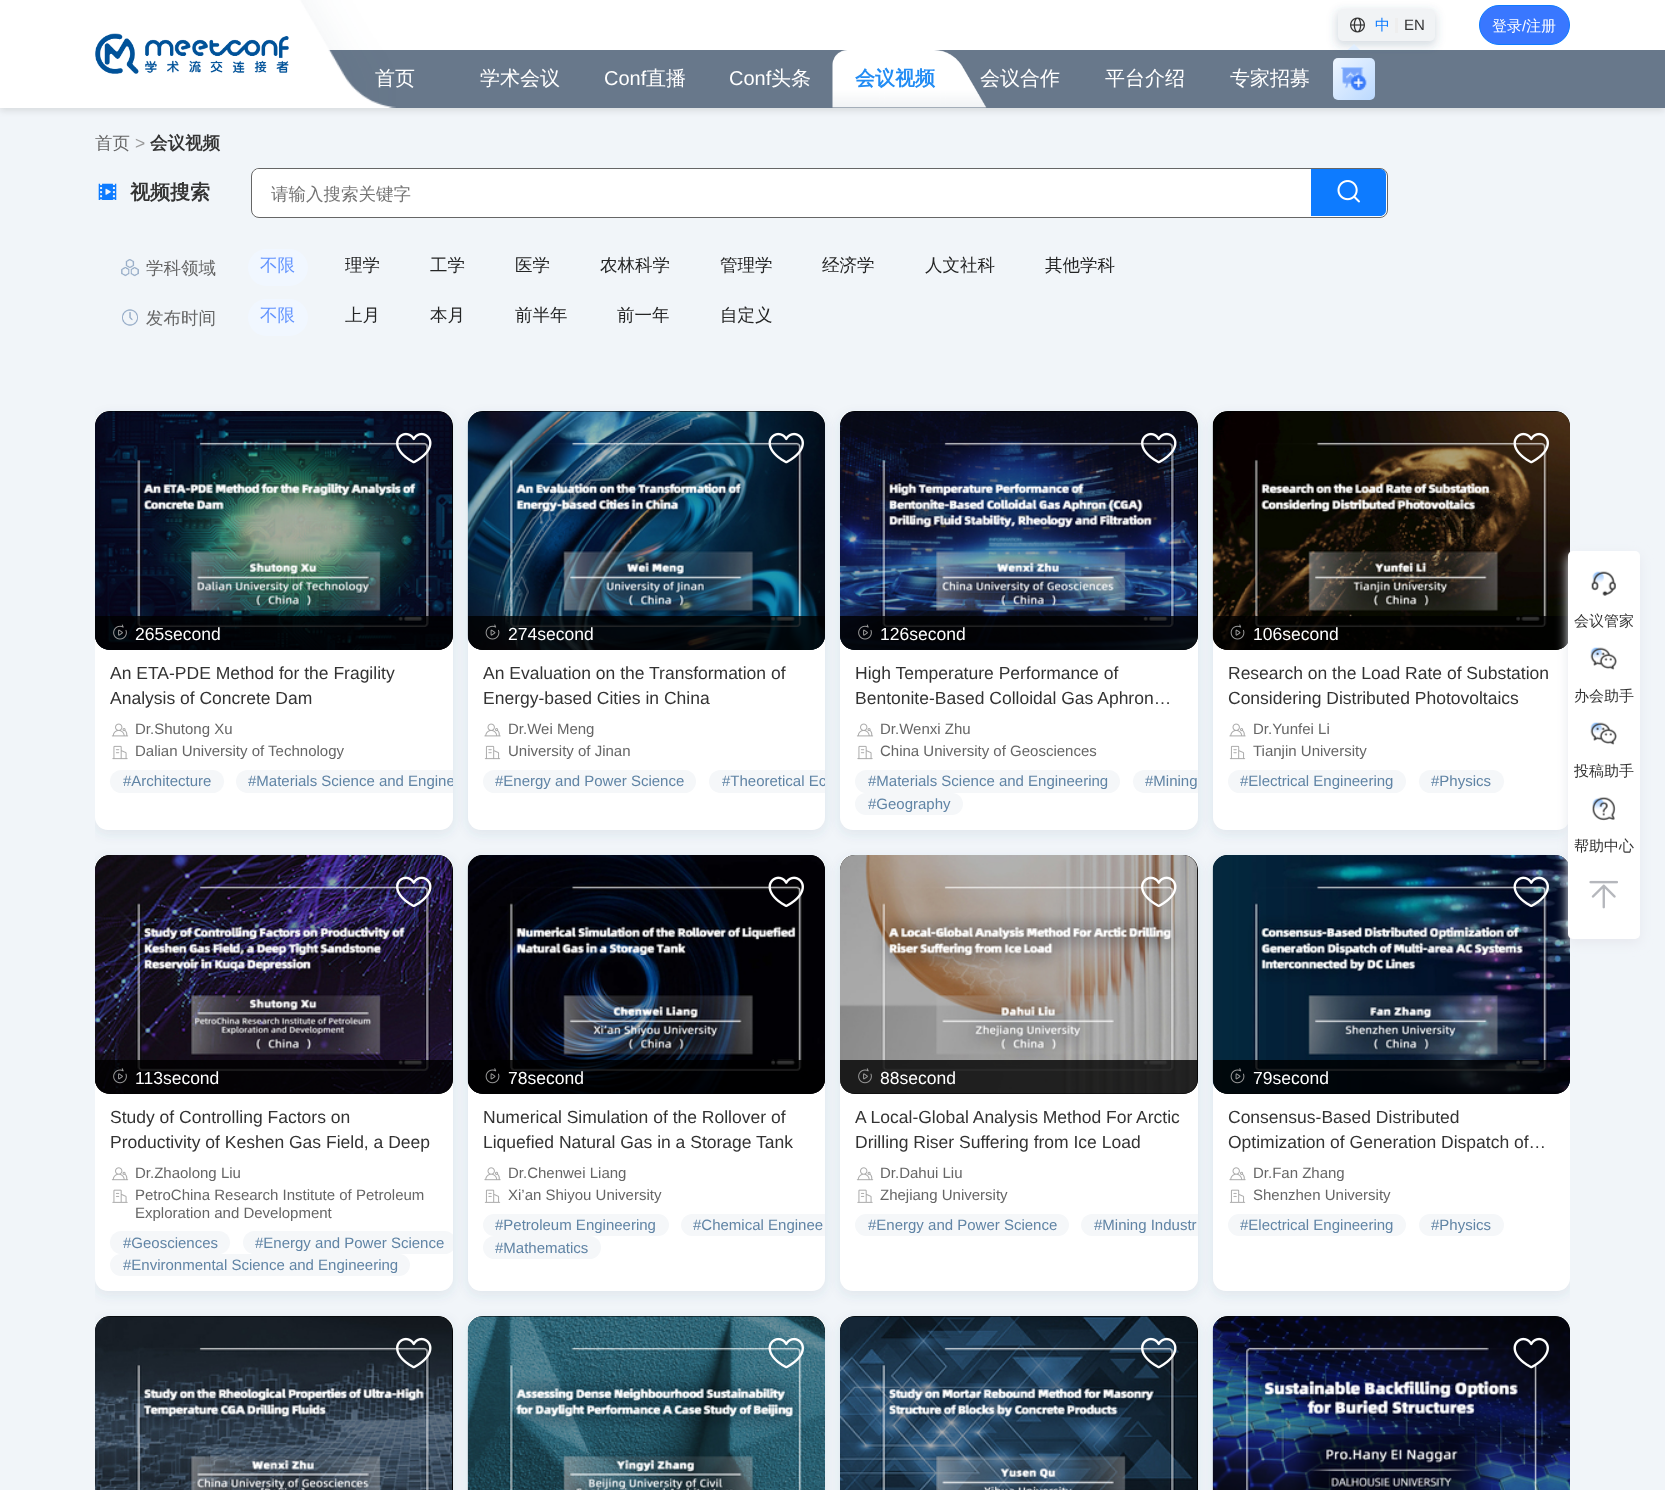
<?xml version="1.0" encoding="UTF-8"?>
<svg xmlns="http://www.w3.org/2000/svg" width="1665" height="1490">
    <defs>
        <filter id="blur1" x="-50%" y="-200%" width="200%" height="500%"><feGaussianBlur stdDeviation="3"/></filter>
        <filter id="blur2" x="-50%" y="-200%" width="200%" height="500%"><feGaussianBlur stdDeviation="5"/></filter>
        <linearGradient id="g1" gradientUnits="userSpaceOnUse" x1="1333" y1="58" x2="1375" y2="100"><stop offset="0" stop-color="#EEF6FF"/><stop offset="1" stop-color="#BBD9FF"/></linearGradient>
        <clipPath id="clip1"><rect x="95" y="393" width="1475" height="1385"/></clipPath>
        <filter id="blur3" x="-50%" y="-200%" width="200%" height="500%"><feGaussianBlur stdDeviation="6"/></filter>
        <clipPath id="clip2"><rect x="95" y="411" width="358" height="419" rx="13"/></clipPath>
        <clipPath id="clip3"><rect x="468" y="411" width="357" height="419" rx="13"/></clipPath>
        <clipPath id="clip4"><rect x="840" y="411" width="358" height="419" rx="13"/></clipPath>
        <clipPath id="clip5"><rect x="1213" y="411" width="357" height="419" rx="13"/></clipPath>
        <clipPath id="clip6"><rect x="95" y="855" width="358" height="436" rx="13"/></clipPath>
        <clipPath id="clip7"><rect x="468" y="855" width="357" height="436" rx="13"/></clipPath>
        <clipPath id="clip8"><rect x="840" y="855" width="358" height="436" rx="13"/></clipPath>
        <clipPath id="clip9"><rect x="1213" y="855" width="357" height="436" rx="13"/></clipPath>
        <clipPath id="clip10"><rect x="95" y="1316" width="358" height="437" rx="13"/></clipPath>
        <clipPath id="clip11"><rect x="468" y="1316" width="357" height="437" rx="13"/></clipPath>
        <clipPath id="clip12"><rect x="840" y="1316" width="358" height="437" rx="13"/></clipPath>
        <clipPath id="clip13"><rect x="1213" y="1316" width="357" height="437" rx="13"/></clipPath>
    </defs>
    <rect width="100%" height="100%" fill="#F1F5F9"/>
    <rect x="0" y="4" width="1665" height="107" fill="#000000" fill-opacity="0.1" filter="url(#blur1)"/>
    <rect x="299" y="0" width="1366" height="50" fill="#FFFFFF"/>
    <rect x="328" y="50" width="1337" height="58" fill="#68788B"/>
    <image x="0" y="0" width="396" height="108" href="img_01.png"/>
    <image x="95" y="33" width="194" height="41" href="img_02.png"/>
    <rect x="1336" y="11" width="100" height="35" rx="6" fill="#375471" fill-opacity="0.2" filter="url(#blur2)"/>
    <rect x="1338" y="9" width="97" height="32" rx="5" fill="#F1F3F5"/>
    <image x="1350" y="17" width="15" height="16" href="img_03.png"/>
    <text x="1375" y="30" font-family="WenQuanYi Zen Hei" font-size="15" font-weight="500" fill="#0D7BFF">中</text>
    <rect x="1395" y="18" width="3" height="15" fill="#EEEEEE"/>
    <text x="1404" y="30" font-family="Liberation Sans" font-size="15" fill="#333333">EN</text>
    <rect x="1479.5" y="5.5" width="90" height="39" rx="19.5" fill="#3977FF" stroke="#0D7BFF"/>
    <text x="1492" y="31" font-family="WenQuanYi Zen Hei" font-size="15" font-weight="500" fill="#FFFFFF">登录</text>
    <text x="1522" y="31" font-family="Liberation Sans" font-size="15" fill="#FFFFFF">/</text>
    <text x="1526" y="31" font-family="WenQuanYi Zen Hei" font-size="15" font-weight="500" fill="#FFFFFF">注册</text>
    <text x="375" y="85" font-family="WenQuanYi Zen Hei" font-size="20" font-weight="500" fill="#FFFFFF">首页</text>
    <text x="480" y="85" font-family="WenQuanYi Zen Hei" font-size="20" font-weight="500" fill="#FFFFFF">学术会议</text>
    <text x="604" y="85" font-family="Liberation Sans" font-size="20" fill="#FFFFFF">Conf</text>
    <text x="646" y="85" font-family="WenQuanYi Zen Hei" font-size="20" font-weight="500" fill="#FFFFFF">直播</text>
    <text x="729" y="85" font-family="Liberation Sans" font-size="20" fill="#FFFFFF">Conf</text>
    <text x="771" y="85" font-family="WenQuanYi Zen Hei" font-size="20" font-weight="500" fill="#FFFFFF">头条</text>
    <image x="832" y="50" width="155" height="58" href="img_04.png"/>
    <text x="855" y="85" font-family="WenQuanYi Zen Hei" font-size="20" font-weight="700" fill="#228CF4">会议视频</text>
    <text x="980" y="85" font-family="WenQuanYi Zen Hei" font-size="20" font-weight="500" fill="#FFFFFF">会议合作</text>
    <text x="1105" y="85" font-family="WenQuanYi Zen Hei" font-size="20" font-weight="500" fill="#FFFFFF">平台介绍</text>
    <text x="1230" y="85" font-family="WenQuanYi Zen Hei" font-size="20" font-weight="500" fill="#FFFFFF">专家招募</text>
    <path d="M 1360 50 H 1347.5 L 1354 44 Z" fill="#E0EEFF"/>
    <rect x="1333" y="58" width="42" height="42" rx="5" fill="url(#g1)"/>
    <image x="1341" y="67" width="26" height="24" href="img_05.png"/>
    <text x="95" y="149" font-family="WenQuanYi Zen Hei" font-size="17.5" font-weight="500" fill="#666666">首页</text>
    <text x="135" y="149" font-family="Liberation Sans" font-size="17.5" fill="#999999">&gt;</text>
    <text x="150" y="149" font-family="WenQuanYi Zen Hei" font-size="17.5" font-weight="700" fill="#333333">会议视频</text>
    <image x="98" y="183" width="19" height="17" href="img_06.png"/>
    <text x="130" y="199" font-family="WenQuanYi Zen Hei" font-size="20" font-weight="700" fill="#333333">视频搜索</text>
    <rect x="251.5" y="168.5" width="1136" height="49" rx="7.5" fill="#FFFFFF" stroke="#666666"/>
    <path d="M 259 169 H 1315 V 216 H 259 C 255.5 216 253 213.5 253 210 V 175 C 253 171.5 255.5 169 259 169 Z" fill="#FFFFFF"/>
    <text x="271" y="200" font-family="WenQuanYi Zen Hei" font-size="17.5" font-weight="500" fill="#757575">请输入搜索关键字</text>
    <path d="M 1311 169 H 1380 C 1383.5 169 1386 171.5 1386 175 V 210 C 1386 213.5 1383.5 216 1380 216 H 1311 Z" fill="#0D7BFF"/>
    <image x="1337" y="180" width="23" height="23" href="img_07.png"/>
    <image x="121" y="259" width="18" height="18" href="img_08.png"/>
    <text x="146" y="274" font-family="WenQuanYi Zen Hei" font-size="17.5" font-weight="500" fill="#666666">学科领域</text>
    <rect x="248" y="249" width="60" height="37" rx="18.5" fill="#F1F7FF"/>
    <text x="260" y="271" font-family="WenQuanYi Zen Hei" font-size="17.5" font-weight="500" fill="#6193FF">不限</text>
    <text x="345" y="271" font-family="WenQuanYi Zen Hei" font-size="17.5" font-weight="500" fill="#242525">理学</text>
    <text x="430" y="271" font-family="WenQuanYi Zen Hei" font-size="17.5" font-weight="500" fill="#242525">工学</text>
    <text x="515" y="271" font-family="WenQuanYi Zen Hei" font-size="17.5" font-weight="500" fill="#242525">医学</text>
    <text x="600" y="271" font-family="WenQuanYi Zen Hei" font-size="17.5" font-weight="500" fill="#242525">农林科学</text>
    <text x="720" y="271" font-family="WenQuanYi Zen Hei" font-size="17.5" font-weight="500" fill="#242525">管理学</text>
    <text x="822" y="271" font-family="WenQuanYi Zen Hei" font-size="17.5" font-weight="500" fill="#242525">经济学</text>
    <text x="925" y="271" font-family="WenQuanYi Zen Hei" font-size="17.5" font-weight="500" fill="#242525">人文社科</text>
    <text x="1045" y="271" font-family="WenQuanYi Zen Hei" font-size="17.5" font-weight="500" fill="#242525">其他学科</text>
    <image x="122" y="309" width="16" height="17" href="img_09.png"/>
    <text x="146" y="324" font-family="WenQuanYi Zen Hei" font-size="17.5" font-weight="500" fill="#666666">发布时间</text>
    <rect x="248" y="299" width="60" height="37" rx="18.5" fill="#F1F7FF"/>
    <text x="260" y="321" font-family="WenQuanYi Zen Hei" font-size="17.5" font-weight="500" fill="#6193FF">不限</text>
    <text x="345" y="321" font-family="WenQuanYi Zen Hei" font-size="17.5" font-weight="500" fill="#242525">上月</text>
    <text x="430" y="321" font-family="WenQuanYi Zen Hei" font-size="17.5" font-weight="500" fill="#242525">本月</text>
    <text x="515" y="321" font-family="WenQuanYi Zen Hei" font-size="17.5" font-weight="500" fill="#242525">前半年</text>
    <text x="617" y="321" font-family="WenQuanYi Zen Hei" font-size="17.5" font-weight="500" fill="#242525">前一年</text>
    <text x="720" y="321" font-family="WenQuanYi Zen Hei" font-size="17.5" font-weight="500" fill="#242525">自定义</text>
    <g clip-path="url(#clip1)">
        <rect x="95" y="415" width="358" height="419" rx="13" fill="#375471" fill-opacity="0.1" filter="url(#blur3)"/>
    </g>
    <rect x="95" y="411" width="358" height="419" rx="13" fill="#FFFFFF"/>
    <path d="M 247.5 770 H 453 V 793 H 247.5 C 241 793 236 788 236 781.5 C 236 775 241 770 247.5 770 Z" fill="#F5F7F9"/>
    <rect x="468" y="415" width="357" height="419" rx="13" fill="#375471" fill-opacity="0.1" filter="url(#blur3)"/>
    <g clip-path="url(#clip2)">
        <rect x="95" y="411" width="358" height="239" rx="15" fill="#000000"/>
    </g>
    <image x="95" y="411" width="358" height="239" href="img_10.png"/>
    <image x="396" y="432" width="36" height="32" href="img_11.png"/>
    <path d="M 95 616 H 453 V 635 C 453 643.5 446.5 650 438 650 H 110 C 101.5 650 95 643.5 95 635 Z" fill="#000000" fill-opacity="0.8"/>
    <image x="113" y="624" width="14" height="16" href="img_12.png"/>
    <text x="135" y="640" font-family="Liberation Sans" font-size="17.5" fill="#FFFFFF">265second</text>
    <text font-family="Liberation Sans" font-size="17.5" fill="#333333">
        <tspan x="110" y="679">An ETA-PDE Method for the Fragility</tspan>
        <tspan x="110" y="704">Analysis of Concrete Dam</tspan>
    </text>
    <image x="111" y="723" width="18" height="14" href="img_13.png"/>
    <text x="135" y="734" font-family="Liberation Sans" font-size="15" fill="#666666">Dr.Shutong Xu</text>
    <image x="112" y="745" width="16" height="15" href="img_14.png"/>
    <text x="135" y="756" font-family="Liberation Sans" font-size="15" fill="#666666">Dalian University of Technology</text>
    <rect x="110" y="770" width="114" height="23" rx="11.5" fill="#F5F7F9"/>
    <text x="123" y="786" font-family="Liberation Sans" font-size="15" fill="#6084A5">#Architecture</text>
    <g clip-path="url(#clip2)">
        <text x="248" y="786" font-family="Liberation Sans" font-size="15" fill="#6084A5">#Materials Science and Engine</text>
    </g>
    <rect x="468" y="411" width="357" height="419" rx="13" fill="#FFFFFF"/>
    <path d="M 720.5 770 H 825 V 793 H 720.5 C 714 793 709 788 709 781.5 C 709 775 714 770 720.5 770 Z" fill="#F5F7F9"/>
    <rect x="840" y="415" width="358" height="419" rx="13" fill="#375471" fill-opacity="0.1" filter="url(#blur3)"/>
    <g clip-path="url(#clip3)">
        <rect x="468" y="411" width="357" height="239" rx="15" fill="#000000"/>
    </g>
    <image x="467" y="411" width="358" height="239" href="img_15.png"/>
    <image x="768" y="432" width="36" height="32" href="img_16.png"/>
    <path d="M 468 616 H 825 V 635 C 825 643.5 818.5 650 810 650 H 483 C 474.5 650 468 643.5 468 635 Z" fill="#000000" fill-opacity="0.8"/>
    <image x="485" y="624" width="15" height="16" href="img_17.png"/>
    <text x="508" y="640" font-family="Liberation Sans" font-size="17.5" fill="#FFFFFF">274second</text>
    <text font-family="Liberation Sans" font-size="17.5" fill="#333333">
        <tspan x="483" y="679">An Evaluation on the Transformation of</tspan>
        <tspan x="483" y="704">Energy-based Cities in China</tspan>
    </text>
    <image x="484" y="723" width="17" height="14" href="img_18.png"/>
    <text x="508" y="734" font-family="Liberation Sans" font-size="15" fill="#666666">Dr.Wei Meng</text>
    <image x="484" y="745" width="17" height="15" href="img_19.png"/>
    <text x="508" y="756" font-family="Liberation Sans" font-size="15" fill="#666666">University of Jinan</text>
    <rect x="483" y="770" width="213" height="23" rx="11.5" fill="#F5F7F9"/>
    <text x="495" y="786" font-family="Liberation Sans" font-size="15" fill="#6084A5">#Energy and Power Science</text>
    <g clip-path="url(#clip3)">
        <text x="722" y="786" font-family="Liberation Sans" font-size="15" fill="#6084A5">#Theoretical Ec</text>
    </g>
    <rect x="840" y="411" width="358" height="419" rx="13" fill="#FFFFFF"/>
    <path d="M 1144.5 770 H 1198 V 793 H 1144.5 C 1138 793 1133 788 1133 781.5 C 1133 775 1138 770 1144.5 770 Z" fill="#F5F7F9"/>
    <g clip-path="url(#clip1)">
        <rect x="1213" y="415" width="357" height="419" rx="13" fill="#375471" fill-opacity="0.1" filter="url(#blur3)"/>
    </g>
    <g clip-path="url(#clip4)">
        <rect x="840" y="411" width="358" height="239" rx="15" fill="#000000"/>
    </g>
    <image x="840" y="411" width="358" height="239" href="img_20.png"/>
    <image x="1141" y="432" width="36" height="32" href="img_21.png"/>
    <path d="M 840 616 H 1198 V 635 C 1198 643.5 1191.5 650 1183 650 H 855 C 846.5 650 840 643.5 840 635 Z" fill="#000000" fill-opacity="0.8"/>
    <image x="858" y="624" width="14" height="16" href="img_22.png"/>
    <text x="880" y="640" font-family="Liberation Sans" font-size="17.5" fill="#FFFFFF">126second</text>
    <text font-family="Liberation Sans" font-size="17.5" fill="#333333">
        <tspan x="855" y="679">High Temperature Performance of</tspan>
        <tspan x="855" y="704">Bentonite-Based Colloidal Gas Aphron…</tspan>
    </text>
    <image x="856" y="723" width="18" height="14" href="img_13.png"/>
    <text x="880" y="734" font-family="Liberation Sans" font-size="15" fill="#666666">Dr.Wenxi Zhu</text>
    <image x="857" y="745" width="16" height="15" href="img_14.png"/>
    <text x="880" y="756" font-family="Liberation Sans" font-size="15" fill="#666666">China University of Geosciences</text>
    <rect x="855" y="770" width="265" height="23" rx="11.5" fill="#F5F7F9"/>
    <text x="868" y="786" font-family="Liberation Sans" font-size="15" fill="#6084A5">#Materials Science and Engineering</text>
    <text x="1145" y="786" font-family="Liberation Sans" font-size="15" fill="#6084A5">#Mining</text>
    <rect x="855" y="793" width="108" height="22" rx="11" fill="#F5F7F9"/>
    <text x="868" y="809" font-family="Liberation Sans" font-size="15" fill="#6084A5">#Geography</text>
    <rect x="1213" y="411" width="357" height="419" rx="13" fill="#FFFFFF"/>
    <g clip-path="url(#clip5)">
        <rect x="1213" y="411" width="357" height="239" rx="15" fill="#000000"/>
    </g>
    <image x="1212" y="411" width="358" height="239" href="img_23.png"/>
    <image x="1513" y="432" width="36" height="32" href="img_24.png"/>
    <path d="M 1213 616 H 1570 V 635 C 1570 643.5 1563.5 650 1555 650 H 1228 C 1219.5 650 1213 643.5 1213 635 Z" fill="#000000" fill-opacity="0.8"/>
    <image x="1230" y="624" width="15" height="16" href="img_25.png"/>
    <text x="1253" y="640" font-family="Liberation Sans" font-size="17.5" fill="#FFFFFF">106second</text>
    <text font-family="Liberation Sans" font-size="17.5" fill="#333333">
        <tspan x="1228" y="679">Research on the Load Rate of Substation</tspan>
        <tspan x="1228" y="704">Considering Distributed Photovoltaics</tspan>
    </text>
    <image x="1229" y="723" width="17" height="14" href="img_18.png"/>
    <text x="1253" y="734" font-family="Liberation Sans" font-size="15" fill="#666666">Dr.Yunfei Li</text>
    <image x="1229" y="745" width="17" height="15" href="img_19.png"/>
    <text x="1253" y="756" font-family="Liberation Sans" font-size="15" fill="#666666">Tianjin University</text>
    <rect x="1228" y="770" width="178" height="23" rx="11.5" fill="#F5F7F9"/>
    <text x="1240" y="786" font-family="Liberation Sans" font-size="15" fill="#6084A5">#Electrical Engineering</text>
    <rect x="1419" y="770" width="85" height="23" rx="11.5" fill="#F5F7F9"/>
    <text x="1431" y="786" font-family="Liberation Sans" font-size="15" fill="#6084A5">#Physics</text>
    <g clip-path="url(#clip1)">
        <rect x="95" y="859" width="358" height="436" rx="13" fill="#375471" fill-opacity="0.1" filter="url(#blur3)"/>
    </g>
    <rect x="95" y="855" width="358" height="436" rx="13" fill="#FFFFFF"/>
    <g clip-path="url(#clip6)">
        <rect x="243" y="1231" width="213" height="23" rx="11.5" fill="#F5F7F9"/>
    </g>
    <rect x="468" y="859" width="357" height="436" rx="13" fill="#375471" fill-opacity="0.1" filter="url(#blur3)"/>
    <g clip-path="url(#clip6)">
        <rect x="95" y="855" width="358" height="239" rx="15" fill="#000000"/>
    </g>
    <image x="95" y="855" width="358" height="239" href="img_26.png"/>
    <image x="396" y="876" width="36" height="32" href="img_27.png"/>
    <path d="M 95 1060 H 453 V 1079 C 453 1087.5 446.5 1094 438 1094 H 110 C 101.5 1094 95 1087.5 95 1079 Z" fill="#000000" fill-opacity="0.8"/>
    <image x="113" y="1068" width="14" height="16" href="img_28.png"/>
    <text x="135" y="1084" font-family="Liberation Sans" font-size="17.5" fill="#FFFFFF">113second</text>
    <text font-family="Liberation Sans" font-size="17.5" fill="#333333">
        <tspan x="110" y="1123">Study of Controlling Factors on</tspan>
        <tspan x="110" y="1148">Productivity of Keshen Gas Field, a Deep</tspan>
    </text>
    <image x="111" y="1167" width="18" height="14" href="img_29.png"/>
    <text x="135" y="1178" font-family="Liberation Sans" font-size="15" fill="#666666">Dr.Zhaolong Liu</text>
    <image x="112" y="1189" width="16" height="14" href="img_30.png"/>
    <text font-family="Liberation Sans" font-size="15" fill="#666666">
        <tspan x="135" y="1200">PetroChina Research Institute of Petroleum</tspan>
        <tspan x="135" y="1218">Exploration and Development</tspan>
    </text>
    <rect x="110" y="1231" width="120" height="23" rx="11.5" fill="#F5F7F9"/>
    <text x="123" y="1248" font-family="Liberation Sans" font-size="15" fill="#6084A5">#Geosciences</text>
    <text x="255" y="1248" font-family="Liberation Sans" font-size="15" fill="#6084A5">#Energy and Power Science</text>
    <rect x="110" y="1254" width="300" height="22" rx="11" fill="#F5F7F9"/>
    <text x="123" y="1270" font-family="Liberation Sans" font-size="15" fill="#6084A5">#Environmental Science and Engineering</text>
    <rect x="468" y="855" width="357" height="436" rx="13" fill="#FFFFFF"/>
    <path d="M 692 1214 H 825 V 1236 H 692 C 686 1236 681 1231 681 1225 C 681 1219 686 1214 692 1214 Z" fill="#F5F7F9"/>
    <rect x="840" y="859" width="358" height="436" rx="13" fill="#375471" fill-opacity="0.1" filter="url(#blur3)"/>
    <g clip-path="url(#clip7)">
        <rect x="468" y="855" width="357" height="239" rx="15" fill="#000000"/>
    </g>
    <image x="467" y="855" width="358" height="239" href="img_31.png"/>
    <image x="768" y="876" width="36" height="32" href="img_32.png"/>
    <path d="M 468 1060 H 825 V 1079 C 825 1087.5 818.5 1094 810 1094 H 483 C 474.5 1094 468 1087.5 468 1079 Z" fill="#000000" fill-opacity="0.8"/>
    <image x="485" y="1068" width="15" height="16" href="img_33.png"/>
    <text x="508" y="1084" font-family="Liberation Sans" font-size="17.5" fill="#FFFFFF">78second</text>
    <text font-family="Liberation Sans" font-size="17.5" fill="#333333">
        <tspan x="483" y="1123">Numerical Simulation of the Rollover of</tspan>
        <tspan x="483" y="1148">Liquefied Natural Gas in a Storage Tank</tspan>
    </text>
    <image x="484" y="1167" width="17" height="14" href="img_34.png"/>
    <text x="508" y="1178" font-family="Liberation Sans" font-size="15" fill="#666666">Dr.Chenwei Liang</text>
    <image x="484" y="1189" width="17" height="14" href="img_35.png"/>
    <text x="508" y="1200" font-family="Liberation Sans" font-size="15" fill="#666666">Xi’an Shiyou University</text>
    <rect x="483" y="1214" width="186" height="22" rx="11" fill="#F5F7F9"/>
    <text x="495" y="1230" font-family="Liberation Sans" font-size="15" fill="#6084A5">#Petroleum Engineering</text>
    <text x="693" y="1230" font-family="Liberation Sans" font-size="15" fill="#6084A5">#Chemical Enginee</text>
    <rect x="483" y="1236" width="118" height="23" rx="11.5" fill="#F5F7F9"/>
    <text x="495" y="1253" font-family="Liberation Sans" font-size="15" fill="#6084A5">#Mathematics</text>
    <rect x="840" y="855" width="358" height="436" rx="13" fill="#FFFFFF"/>
    <path d="M 1092 1214 H 1198 V 1236 H 1092 C 1086 1236 1081 1231 1081 1225 C 1081 1219 1086 1214 1092 1214 Z" fill="#F5F7F9"/>
    <g clip-path="url(#clip1)">
        <rect x="1213" y="859" width="357" height="436" rx="13" fill="#375471" fill-opacity="0.1" filter="url(#blur3)"/>
    </g>
    <g clip-path="url(#clip8)">
        <rect x="840" y="855" width="358" height="239" rx="15" fill="#000000"/>
    </g>
    <image x="840" y="855" width="358" height="239" href="img_36.png"/>
    <image x="1141" y="876" width="36" height="32" href="img_37.png"/>
    <path d="M 840 1060 H 1198 V 1079 C 1198 1087.5 1191.5 1094 1183 1094 H 855 C 846.5 1094 840 1087.5 840 1079 Z" fill="#000000" fill-opacity="0.8"/>
    <image x="858" y="1068" width="14" height="16" href="img_38.png"/>
    <text x="880" y="1084" font-family="Liberation Sans" font-size="17.5" fill="#FFFFFF">88second</text>
    <text font-family="Liberation Sans" font-size="17.5" fill="#333333">
        <tspan x="855" y="1123">A Local-Global Analysis Method For Arctic</tspan>
        <tspan x="855" y="1148">Drilling Riser Suffering from Ice Load</tspan>
    </text>
    <image x="856" y="1167" width="18" height="14" href="img_29.png"/>
    <text x="880" y="1178" font-family="Liberation Sans" font-size="15" fill="#666666">Dr.Dahui Liu</text>
    <image x="857" y="1189" width="16" height="14" href="img_30.png"/>
    <text x="880" y="1200" font-family="Liberation Sans" font-size="15" fill="#666666">Zhejiang University</text>
    <rect x="855" y="1214" width="214" height="22" rx="11" fill="#F5F7F9"/>
    <text x="868" y="1230" font-family="Liberation Sans" font-size="15" fill="#6084A5">#Energy and Power Science</text>
    <text x="1094" y="1230" font-family="Liberation Sans" font-size="15" fill="#6084A5">#Mining Industr</text>
    <rect x="1213" y="855" width="357" height="436" rx="13" fill="#FFFFFF"/>
    <g clip-path="url(#clip9)">
        <rect x="1213" y="855" width="357" height="239" rx="15" fill="#000000"/>
    </g>
    <image x="1212" y="855" width="358" height="239" href="img_39.png"/>
    <image x="1513" y="876" width="36" height="32" href="img_40.png"/>
    <path d="M 1213 1060 H 1570 V 1079 C 1570 1087.5 1563.5 1094 1555 1094 H 1228 C 1219.5 1094 1213 1087.5 1213 1079 Z" fill="#000000" fill-opacity="0.8"/>
    <image x="1230" y="1068" width="15" height="16" href="img_41.png"/>
    <text x="1253" y="1084" font-family="Liberation Sans" font-size="17.5" fill="#FFFFFF">79second</text>
    <text font-family="Liberation Sans" font-size="17.5" fill="#333333">
        <tspan x="1228" y="1123">Consensus-Based Distributed</tspan>
        <tspan x="1228" y="1148">Optimization of Generation Dispatch of…</tspan>
    </text>
    <image x="1229" y="1167" width="17" height="14" href="img_34.png"/>
    <text x="1253" y="1178" font-family="Liberation Sans" font-size="15" fill="#666666">Dr.Fan Zhang</text>
    <image x="1229" y="1189" width="17" height="14" href="img_35.png"/>
    <text x="1253" y="1200" font-family="Liberation Sans" font-size="15" fill="#666666">Shenzhen University</text>
    <rect x="1228" y="1214" width="178" height="22" rx="11" fill="#F5F7F9"/>
    <text x="1240" y="1230" font-family="Liberation Sans" font-size="15" fill="#6084A5">#Electrical Engineering</text>
    <rect x="1419" y="1214" width="85" height="22" rx="11" fill="#F5F7F9"/>
    <text x="1431" y="1230" font-family="Liberation Sans" font-size="15" fill="#6084A5">#Physics</text>
    <g clip-path="url(#clip1)">
        <rect x="95" y="1320" width="358" height="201" rx="13" fill="#375471" fill-opacity="0.1" filter="url(#blur3)"/>
    </g>
    <rect x="95" y="1316" width="358" height="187" rx="13" fill="#FFFFFF"/>
    <rect x="468" y="1320" width="357" height="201" rx="13" fill="#375471" fill-opacity="0.1" filter="url(#blur3)"/>
    <g clip-path="url(#clip10)">
        <rect x="95" y="1316" width="358" height="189" rx="15" fill="#000000"/>
    </g>
    <image x="95" y="1316" width="358" height="174" href="img_42.png"/>
    <image x="396" y="1337" width="36" height="32" href="img_43.png"/>
    <rect x="468" y="1316" width="357" height="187" rx="13" fill="#FFFFFF"/>
    <rect x="840" y="1320" width="358" height="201" rx="13" fill="#375471" fill-opacity="0.1" filter="url(#blur3)"/>
    <g clip-path="url(#clip11)">
        <rect x="468" y="1316" width="357" height="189" rx="15" fill="#000000"/>
    </g>
    <image x="467" y="1316" width="358" height="174" href="img_44.png"/>
    <image x="768" y="1337" width="36" height="32" href="img_45.png"/>
    <rect x="840" y="1316" width="358" height="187" rx="13" fill="#FFFFFF"/>
    <g clip-path="url(#clip1)">
        <rect x="1213" y="1320" width="357" height="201" rx="13" fill="#375471" fill-opacity="0.1" filter="url(#blur3)"/>
    </g>
    <g clip-path="url(#clip12)">
        <rect x="840" y="1316" width="358" height="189" rx="15" fill="#000000"/>
    </g>
    <image x="840" y="1316" width="358" height="174" href="img_46.png"/>
    <image x="1141" y="1337" width="36" height="32" href="img_47.png"/>
    <rect x="1213" y="1316" width="357" height="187" rx="13" fill="#FFFFFF"/>
    <g clip-path="url(#clip13)">
        <rect x="1213" y="1316" width="357" height="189" rx="15" fill="#000000"/>
    </g>
    <image x="1212" y="1316" width="358" height="174" href="img_48.png"/>
    <image x="1513" y="1337" width="36" height="32" href="img_49.png"/>
    <rect x="1568" y="555" width="72" height="388" rx="5" fill="#E6E8EE" filter="url(#blur3)"/>
    <rect x="1568" y="551" width="72" height="388" rx="5" fill="#FFFFFF"/>
    <image x="1591" y="571" width="25" height="25" href="img_50.png"/>
    <text x="1574" y="626" font-family="WenQuanYi Zen Hei" font-size="15" font-weight="500" fill="#333333">会议管家</text>
    <image x="1590" y="647" width="27" height="23" href="img_51.png"/>
    <text x="1574" y="701" font-family="WenQuanYi Zen Hei" font-size="15" font-weight="500" fill="#333333">办会助手</text>
    <image x="1590" y="722" width="27" height="23" href="img_51.png"/>
    <text x="1574" y="776" font-family="WenQuanYi Zen Hei" font-size="15" font-weight="500" fill="#333333">投稿助手</text>
    <image x="1592" y="797" width="24" height="24" href="img_52.png"/>
    <text x="1574" y="851" font-family="WenQuanYi Zen Hei" font-size="15" font-weight="500" fill="#333333">帮助中心</text>
    <image x="1589" y="880" width="29" height="29" href="img_53.png"/>
</svg>
